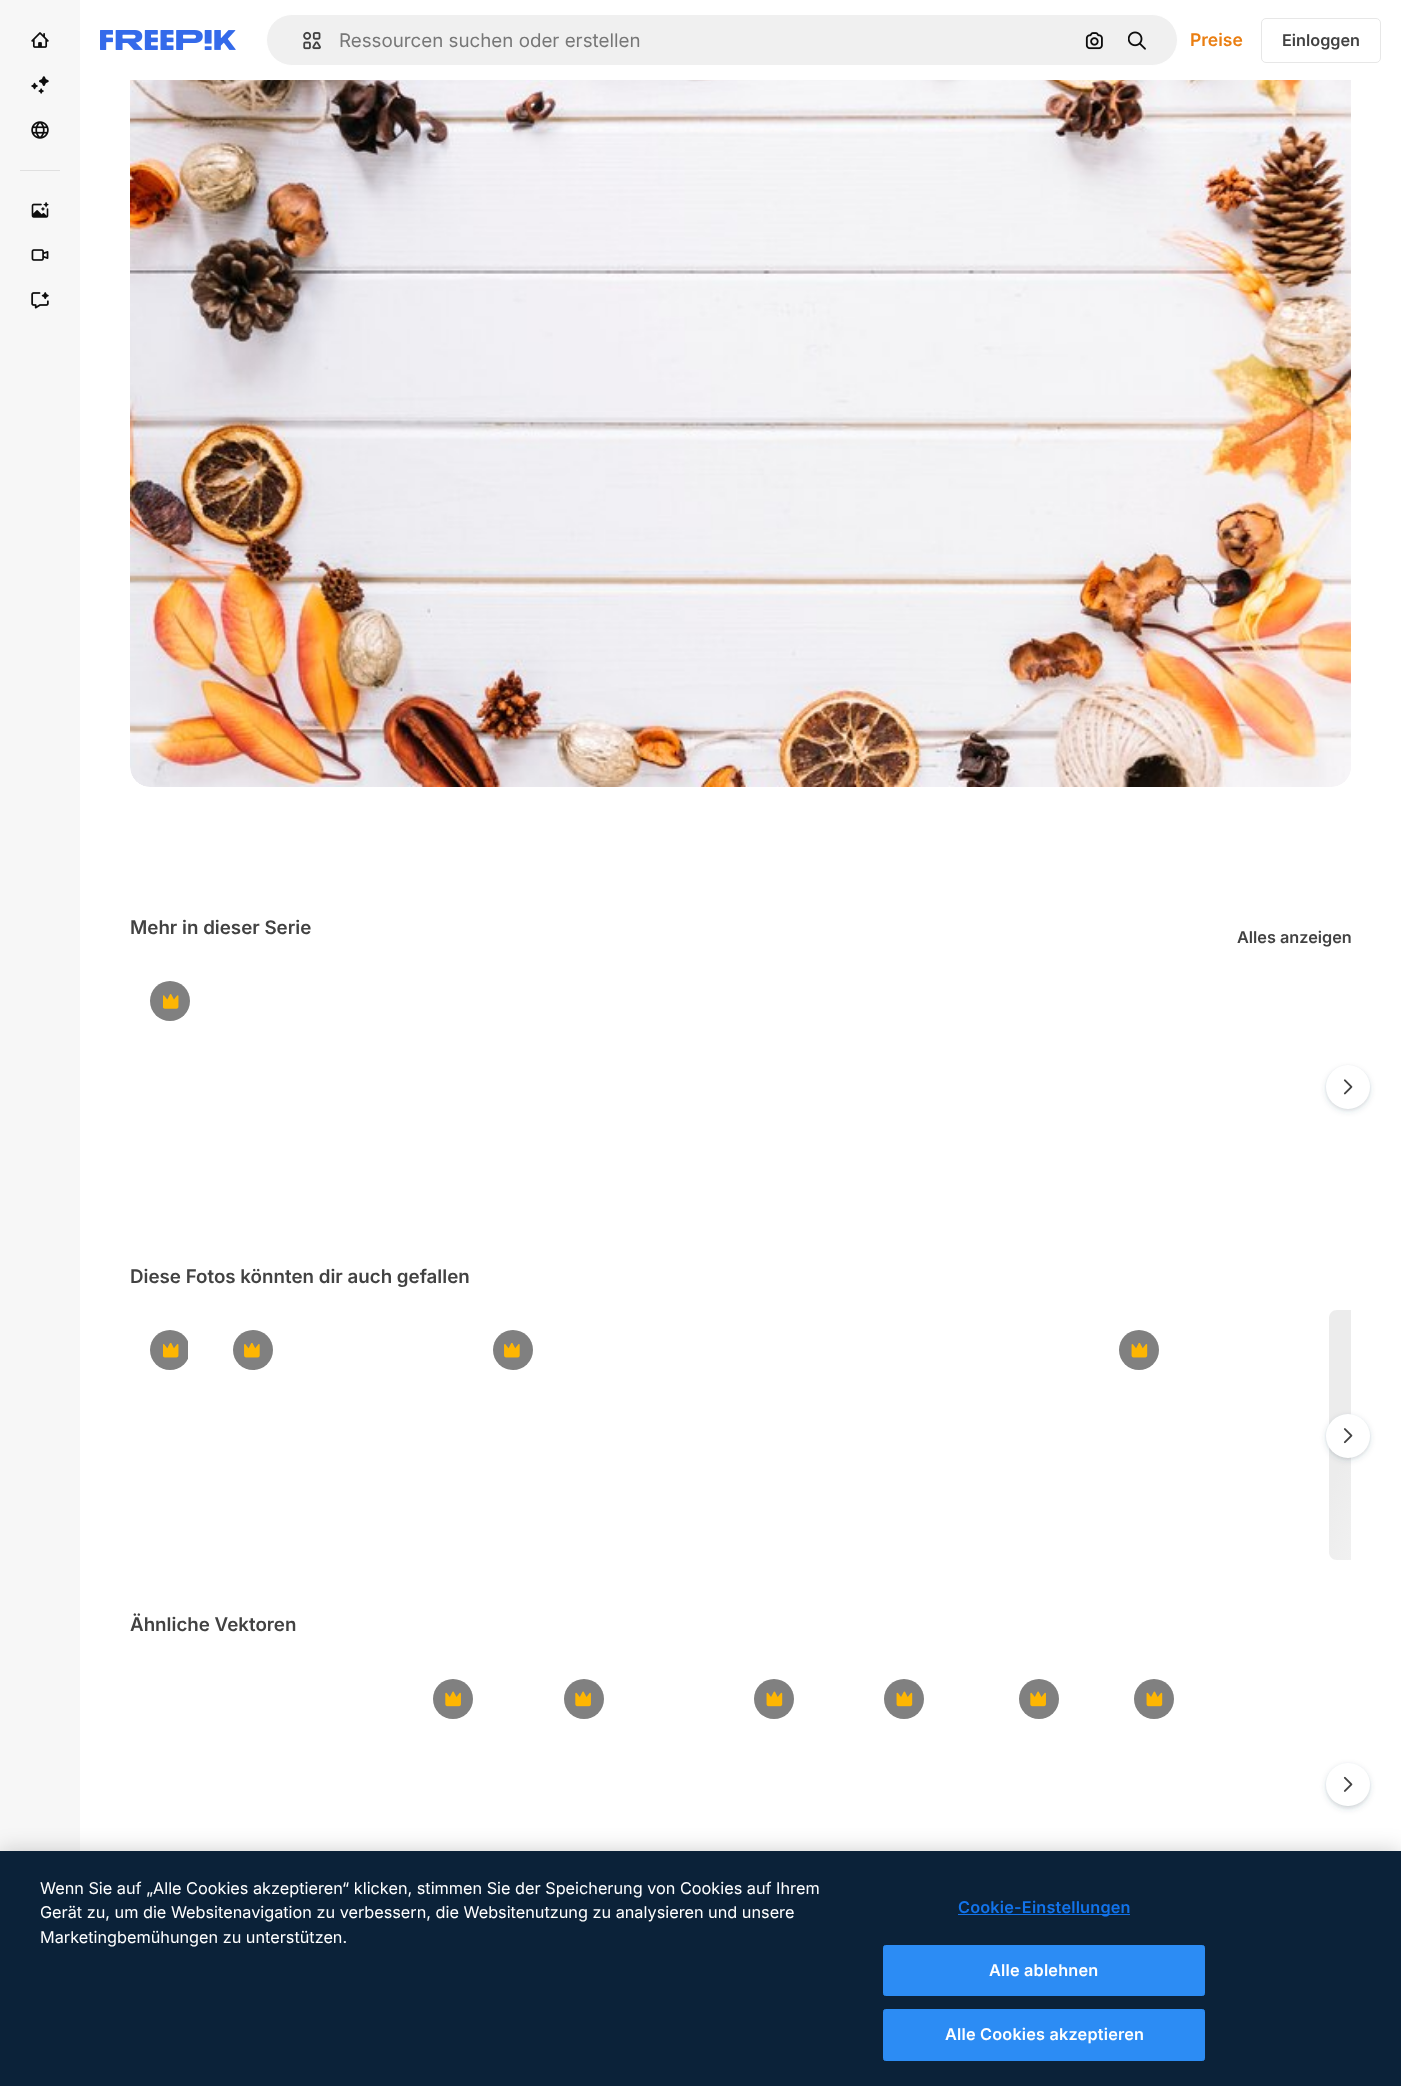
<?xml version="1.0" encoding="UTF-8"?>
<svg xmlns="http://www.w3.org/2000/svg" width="1401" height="2086">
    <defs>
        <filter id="blur1" x="-50%" y="-200%" width="200%" height="500%"><feGaussianBlur stdDeviation="3"/></filter>
        <filter id="blur2" x="-50%" y="-200%" width="200%" height="500%"><feGaussianBlur stdDeviation="1"/></filter>
        <clipPath id="clip1"><rect x="130" y="1310" width="58" height="250" rx="20"/></clipPath>
        <linearGradient id="g1" gradientUnits="userSpaceOnUse" x1="1332" y1="1300" x2="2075" y2="1570"><stop offset="0.08" stop-color="#ECECEC"/><stop offset="0.18" stop-color="#F5F5F5"/><stop offset="0.33" stop-color="#ECECEC"/></linearGradient>
        <filter id="blur3" x="-50%" y="-200%" width="200%" height="500%"><feGaussianBlur stdDeviation="11"/></filter>
    </defs>
    <rect width="100%" height="100%" fill="#FFFFFF"/>
    <rect x="0" y="0" width="80" height="1851" fill="#F7F7F7"/>
    <image x="31" y="32" width="18" height="16" href="img_01.png"/>
    <image x="31" y="76" width="18" height="18" href="img_02.png"/>
    <image x="31" y="121" width="18" height="18" href="img_03.png"/>
    <rect x="20" y="170" width="40" height="1" fill="#E0E0E0"/>
    <image x="31" y="202" width="18" height="16" href="img_04.png"/>
    <image x="31" y="249" width="18" height="12" href="img_05.png"/>
    <image x="31" y="292" width="18" height="17" href="img_06.png"/>
    <image x="100" y="30" width="136" height="20" href="img_07.png"/>
    <rect x="266.5" y="14.5" width="911" height="51" rx="25.5" fill="#F0F0F0" stroke="#FFFFFF"/>
    <image x="303" y="31" width="18" height="19" href="img_08.png"/>
    <text x="339" y="47" font-family="Inter" font-size="18.75" fill="#777777">Ressourcen suchen oder erstellen</text>
    <image x="1085" y="32" width="18" height="18" href="img_09.png"/>
    <image x="1128" y="31" width="18" height="19" href="img_10.png"/>
    <text x="1190" y="46" font-family="Inter" font-size="17.5" font-weight="600" fill="#EA7E11">Preise</text>
    <rect x="1261.5" y="18.5" width="119" height="44" rx="4.5" fill="none" stroke="#E7E7E7"/>
    <text x="1282" y="46" font-family="Inter" font-size="16.25" font-weight="600" fill="#424242">Einloggen</text>
    <image x="130" y="80" width="1221" height="707" href="img_11.png"/>
    <text x="130" y="934" font-family="Inter" font-size="18.75" font-weight="600" fill="#424242">Mehr in dieser Serie</text>
    <text x="1237" y="943" font-family="Inter" font-size="16.25" font-weight="600" fill="#424242">Alles anzeigen</text>
    <circle cx="170" cy="1001" r="20" fill="#808080"/>
    <image x="163" y="994" width="16" height="15" href="img_12.png"/>
    <rect x="1326" y="1068" width="44" height="43" rx="21.5" fill="#374957" fill-opacity="0.15" filter="url(#blur1)"/>
    <rect x="1326" y="1066" width="44" height="44" rx="22" fill="#374957" fill-opacity="0.1" filter="url(#blur2)"/>
    <circle cx="1348" cy="1087" r="22" fill="#FFFFFF"/>
    <image x="1343" y="1079" width="10" height="16" href="img_13.png"/>
    <text x="130" y="1283" font-family="Inter" font-size="18.75" font-weight="600" fill="#424242">Diese Fotos könnten dir auch gefallen</text>
    <g clip-path="url(#clip1)">
        <circle cx="170" cy="1350" r="20" fill="#808080"/>
    </g>
    <image x="163" y="1343" width="16" height="15" href="img_14.png"/>
    <circle cx="253" cy="1350" r="20" fill="#808080"/>
    <image x="244" y="1343" width="16" height="15" href="img_15.png"/>
    <circle cx="513" cy="1350" r="20" fill="#808080"/>
    <image x="504" y="1343" width="16" height="15" href="img_15.png"/>
    <circle cx="1139" cy="1350" r="20" fill="#808080"/>
    <image x="1131" y="1343" width="17" height="15" href="img_16.png"/>
    <path d="M 1337 1310 H 1351 V 1560 H 1337 C 1332.5 1560 1329 1556.5 1329 1552 V 1318 C 1329 1313.5 1332.5 1310 1337 1310 Z" fill="url(#g1)"/>
    <rect x="1326" y="1416" width="44" height="44" rx="22" fill="#374957" fill-opacity="0.15" filter="url(#blur1)"/>
    <rect x="1326" y="1415" width="44" height="44" rx="22" fill="#374957" fill-opacity="0.1" filter="url(#blur2)"/>
    <circle cx="1348" cy="1436" r="22" fill="#FFFFFF"/>
    <image x="1343" y="1428" width="10" height="16" href="img_17.png"/>
    <text x="130" y="1631" font-family="Inter" font-size="18.75" font-weight="600" fill="#424242">Ähnliche Vektoren</text>
    <circle cx="453" cy="1699" r="20" fill="#808080"/>
    <image x="445" y="1691" width="16" height="16" href="img_18.png"/>
    <circle cx="584" cy="1699" r="20" fill="#808080"/>
    <image x="575" y="1691" width="16" height="16" href="img_18.png"/>
    <circle cx="774" cy="1699" r="20" fill="#808080"/>
    <image x="766" y="1691" width="17" height="16" href="img_19.png"/>
    <circle cx="904" cy="1699" r="20" fill="#808080"/>
    <image x="896" y="1691" width="17" height="16" href="img_19.png"/>
    <circle cx="1039" cy="1699" r="20" fill="#808080"/>
    <image x="1030" y="1691" width="16" height="16" href="img_18.png"/>
    <circle cx="1154" cy="1699" r="20" fill="#808080"/>
    <image x="1146" y="1691" width="17" height="16" href="img_19.png"/>
    <rect x="1326" y="1765" width="44" height="44" rx="22" fill="#374957" fill-opacity="0.15" filter="url(#blur1)"/>
    <rect x="1326" y="1764" width="44" height="44" rx="22" fill="#374957" fill-opacity="0.1" filter="url(#blur2)"/>
    <rect x="1326" y="1763" width="44" height="43" rx="21.5" fill="#FFFFFF"/>
    <image x="1343" y="1776" width="10" height="16" href="img_20.png"/>
    <rect x="0" y="1851" width="1401" height="235" fill="#000000" fill-opacity="0.2" filter="url(#blur3)"/>
    <rect x="0" y="1851" width="1401" height="235" fill="#0B2239"/>
    <text font-family="Inter" font-size="16.25" fill="#FFFFFF">
        <tspan x="40" y="1894">Wenn Sie auf „Alle Cookies akzeptieren“ klicken, stimmen Sie der Speicherung von Cookies auf Ihrem</tspan>
        <tspan x="40" y="1918">Gerät zu, um die Websitenavigation zu verbessern, die Websitenutzung zu analysieren und unsere</tspan>
        <tspan x="40" y="1943">Marketingbemühungen zu unterstützen.</tspan>
    </text>
    <rect x="958" y="1914" width="172" height="1" fill="#1273EB"/>
    <text x="958" y="1913" font-family="Inter" font-size="16.25" font-weight="600" letter-spacing="0.2" fill="#1273EB">Cookie-Einstellungen</text>
    <rect x="883.5" y="1945.5" width="321" height="50" rx="2" fill="#2C8CF4" stroke="#2C8CF4"/>
    <text x="989" y="1976" font-family="Inter" font-size="16.25" font-weight="600" letter-spacing="0.2" fill="#FFFFFF">Alle ablehnen</text>
    <rect x="883.5" y="2009.5" width="321" height="51" rx="2" fill="#2C8CF4" stroke="#2C8CF4"/>
    <text x="945" y="2040" font-family="Inter" font-size="16.25" font-weight="600" letter-spacing="0.2" fill="#FFFFFF">Alle Cookies akzeptieren</text>
</svg>
